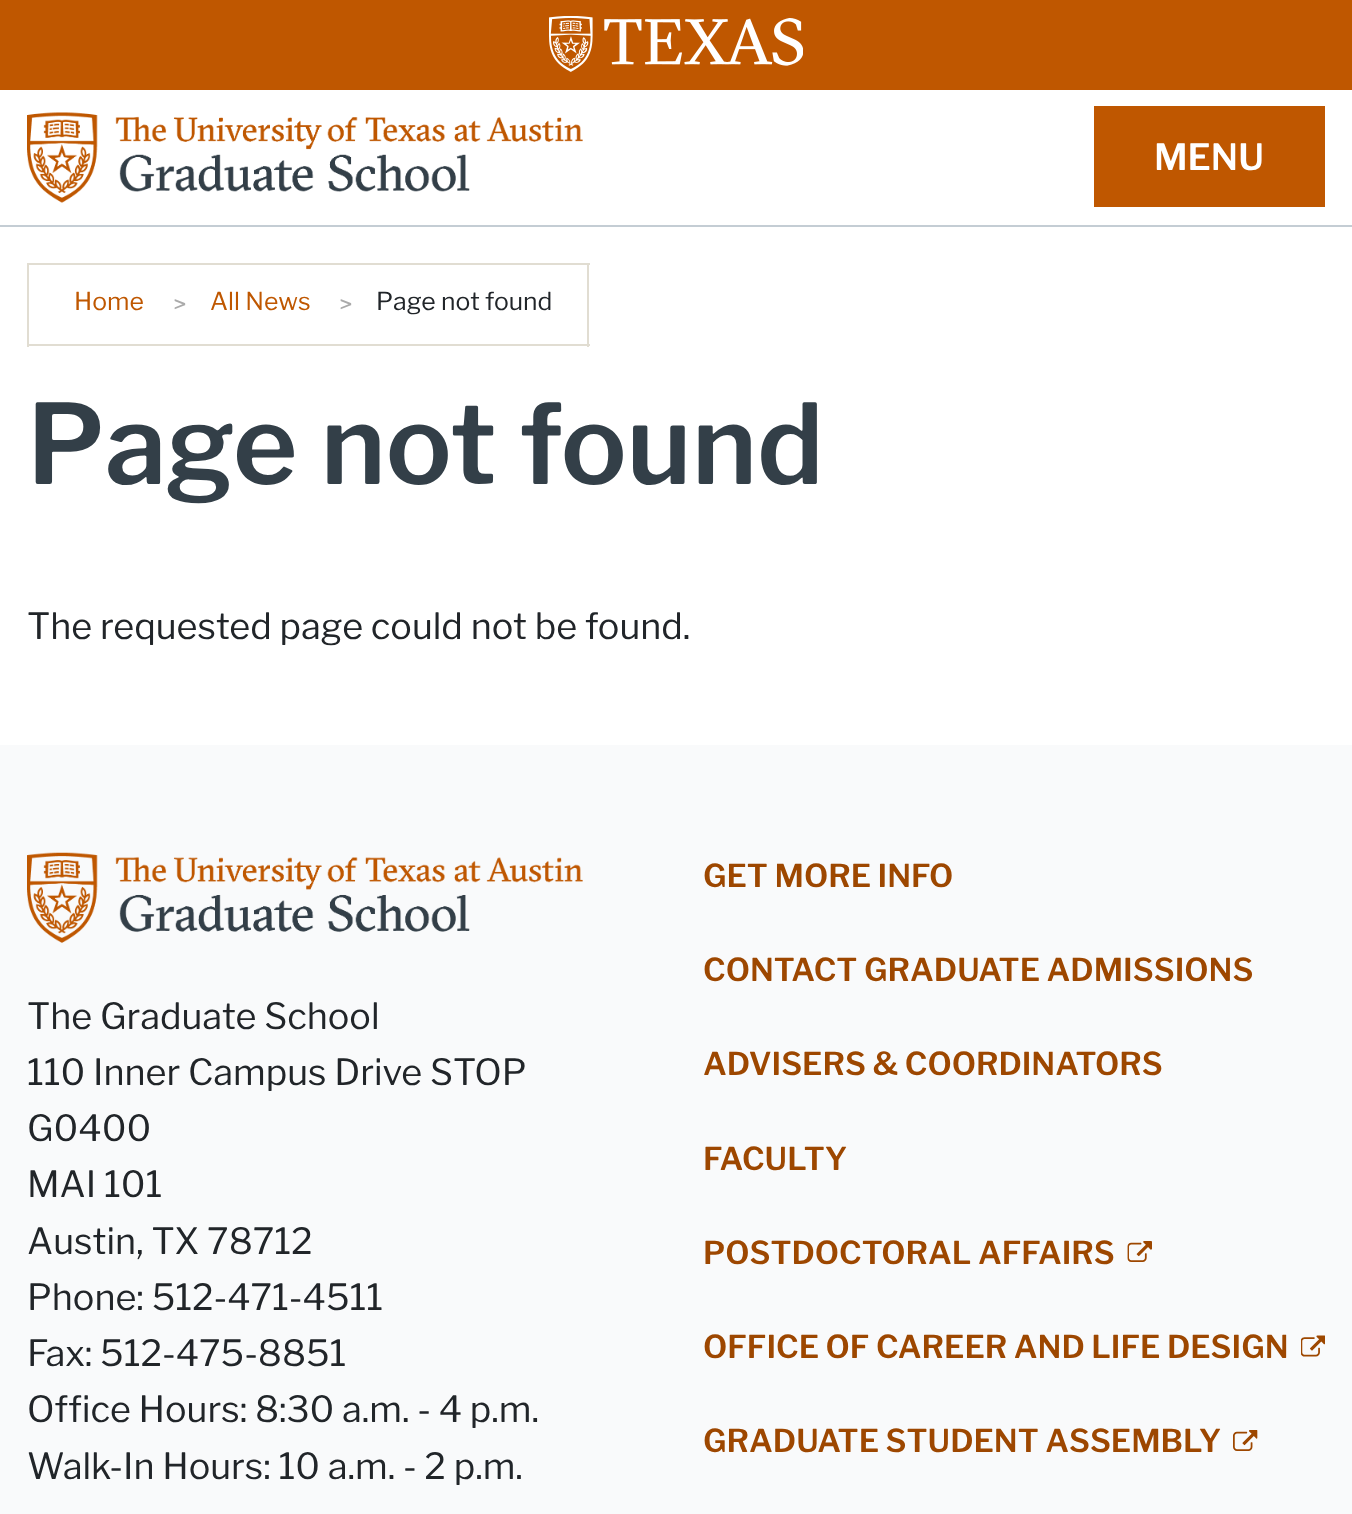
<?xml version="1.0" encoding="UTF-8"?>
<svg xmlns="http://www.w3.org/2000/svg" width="1352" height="1514">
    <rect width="100%" height="100%" fill="#FFFFFF"/>
    <rect x="0" y="0" width="1352" height="90" fill="#BF5700"/>
    <image x="549" y="16" width="254" height="56" href="img_01.png"/>
    <rect x="0" y="225" width="1352" height="2" fill="#C4CDD4"/>
    <image x="27" y="112" width="556" height="91" href="img_02.png"/>
    <rect x="1094" y="106" width="231" height="101" fill="#BF5700"/>
    <text x="1154" y="170" font-family="Libre Franklin" font-size="36" font-weight="600" fill="#FFFFFF">MENU</text>
    <rect x="27" y="263" width="563" height="2" fill="#E1DDD2"/>
    <rect x="27" y="344" width="284" height="2" fill="#E1DDD2"/>
    <rect x="27" y="263" width="2" height="84" fill="#E1DDD2"/>
    <text x="74" y="310" font-family="Libre Franklin" font-size="24.75" fill="#BF5700">Home</text>
    <text x="173" y="313" font-family="Libre Franklin" font-size="24.75" fill="#AAAAAA">&gt;</text>
    <text x="210" y="310" font-family="Libre Franklin" font-size="24.75" fill="#BF5700">All News</text>
    <rect x="587" y="263" width="2" height="84" fill="#E1DDD2"/>
    <rect x="311" y="344" width="279" height="2" fill="#E1DDD2"/>
    <text x="339" y="313" font-family="Libre Franklin" font-size="24.75" fill="#AAAAAA">&gt;</text>
    <text x="376" y="310" font-family="Libre Franklin" font-size="24.75" fill="#212529">Page not found</text>
    <text x="27" y="484" font-family="Libre Franklin" font-size="110.25" font-weight="600" fill="#333F48">Page not found</text>
    <text x="27" y="639" font-family="Libre Franklin" font-size="36" fill="#212529">The requested page could not be found.</text>
    <rect x="0" y="745" width="1352" height="769" fill="#F9FAFB"/>
    <image x="27" y="852" width="556" height="91" href="img_03.png"/>
    <text font-family="Libre Franklin" font-size="36" fill="#212529">
        <tspan x="27" y="1029">The Graduate School</tspan>
        <tspan x="27" y="1085">110 Inner Campus Drive STOP</tspan>
        <tspan x="27" y="1141">G0400</tspan>
        <tspan x="27" y="1197">MAI 101</tspan>
        <tspan x="27" y="1254">Austin, TX 78712</tspan>
        <tspan x="27" y="1310">Phone: 512-471-4511</tspan>
        <tspan x="27" y="1366">Fax: 512-475-8851</tspan>
        <tspan x="27" y="1422">Office Hours: 8:30 a.m. - 4 p.m.</tspan>
        <tspan x="27" y="1479">Walk-In Hours: 10 a.m. - 2 p.m.</tspan>
    </text>
    <text x="703" y="887" font-family="Libre Franklin" font-size="31.5" font-weight="600" fill="#9D4700">GET MORE INFO</text>
    <text x="703" y="981" font-family="Libre Franklin" font-size="31.5" font-weight="600" fill="#9D4700">CONTACT GRADUATE ADMISSIONS</text>
    <text x="703" y="1075" font-family="Libre Franklin" font-size="31.5" font-weight="600" fill="#9D4700">ADVISERS &amp; COORDINATORS</text>
    <text x="703" y="1170" font-family="Libre Franklin" font-size="31.5" font-weight="600" fill="#9D4700">FACULTY</text>
    <text x="703" y="1264" font-family="Libre Franklin" font-size="31.5" font-weight="600" fill="#9D4700">POSTDOCTORAL AFFAIRS</text>
    <image x="1127" y="1241" width="25" height="21" href="img_04.png"/>
    <text x="703" y="1358" font-family="Libre Franklin" font-size="31.5" font-weight="600" fill="#9D4700">OFFICE OF CAREER AND LIFE DESIGN</text>
    <image x="1301" y="1335" width="24" height="22" href="img_05.png"/>
    <text x="703" y="1452" font-family="Libre Franklin" font-size="31.5" font-weight="600" fill="#9D4700">GRADUATE STUDENT ASSEMBLY</text>
    <image x="1233" y="1430" width="25" height="21" href="img_06.png"/>
</svg>
